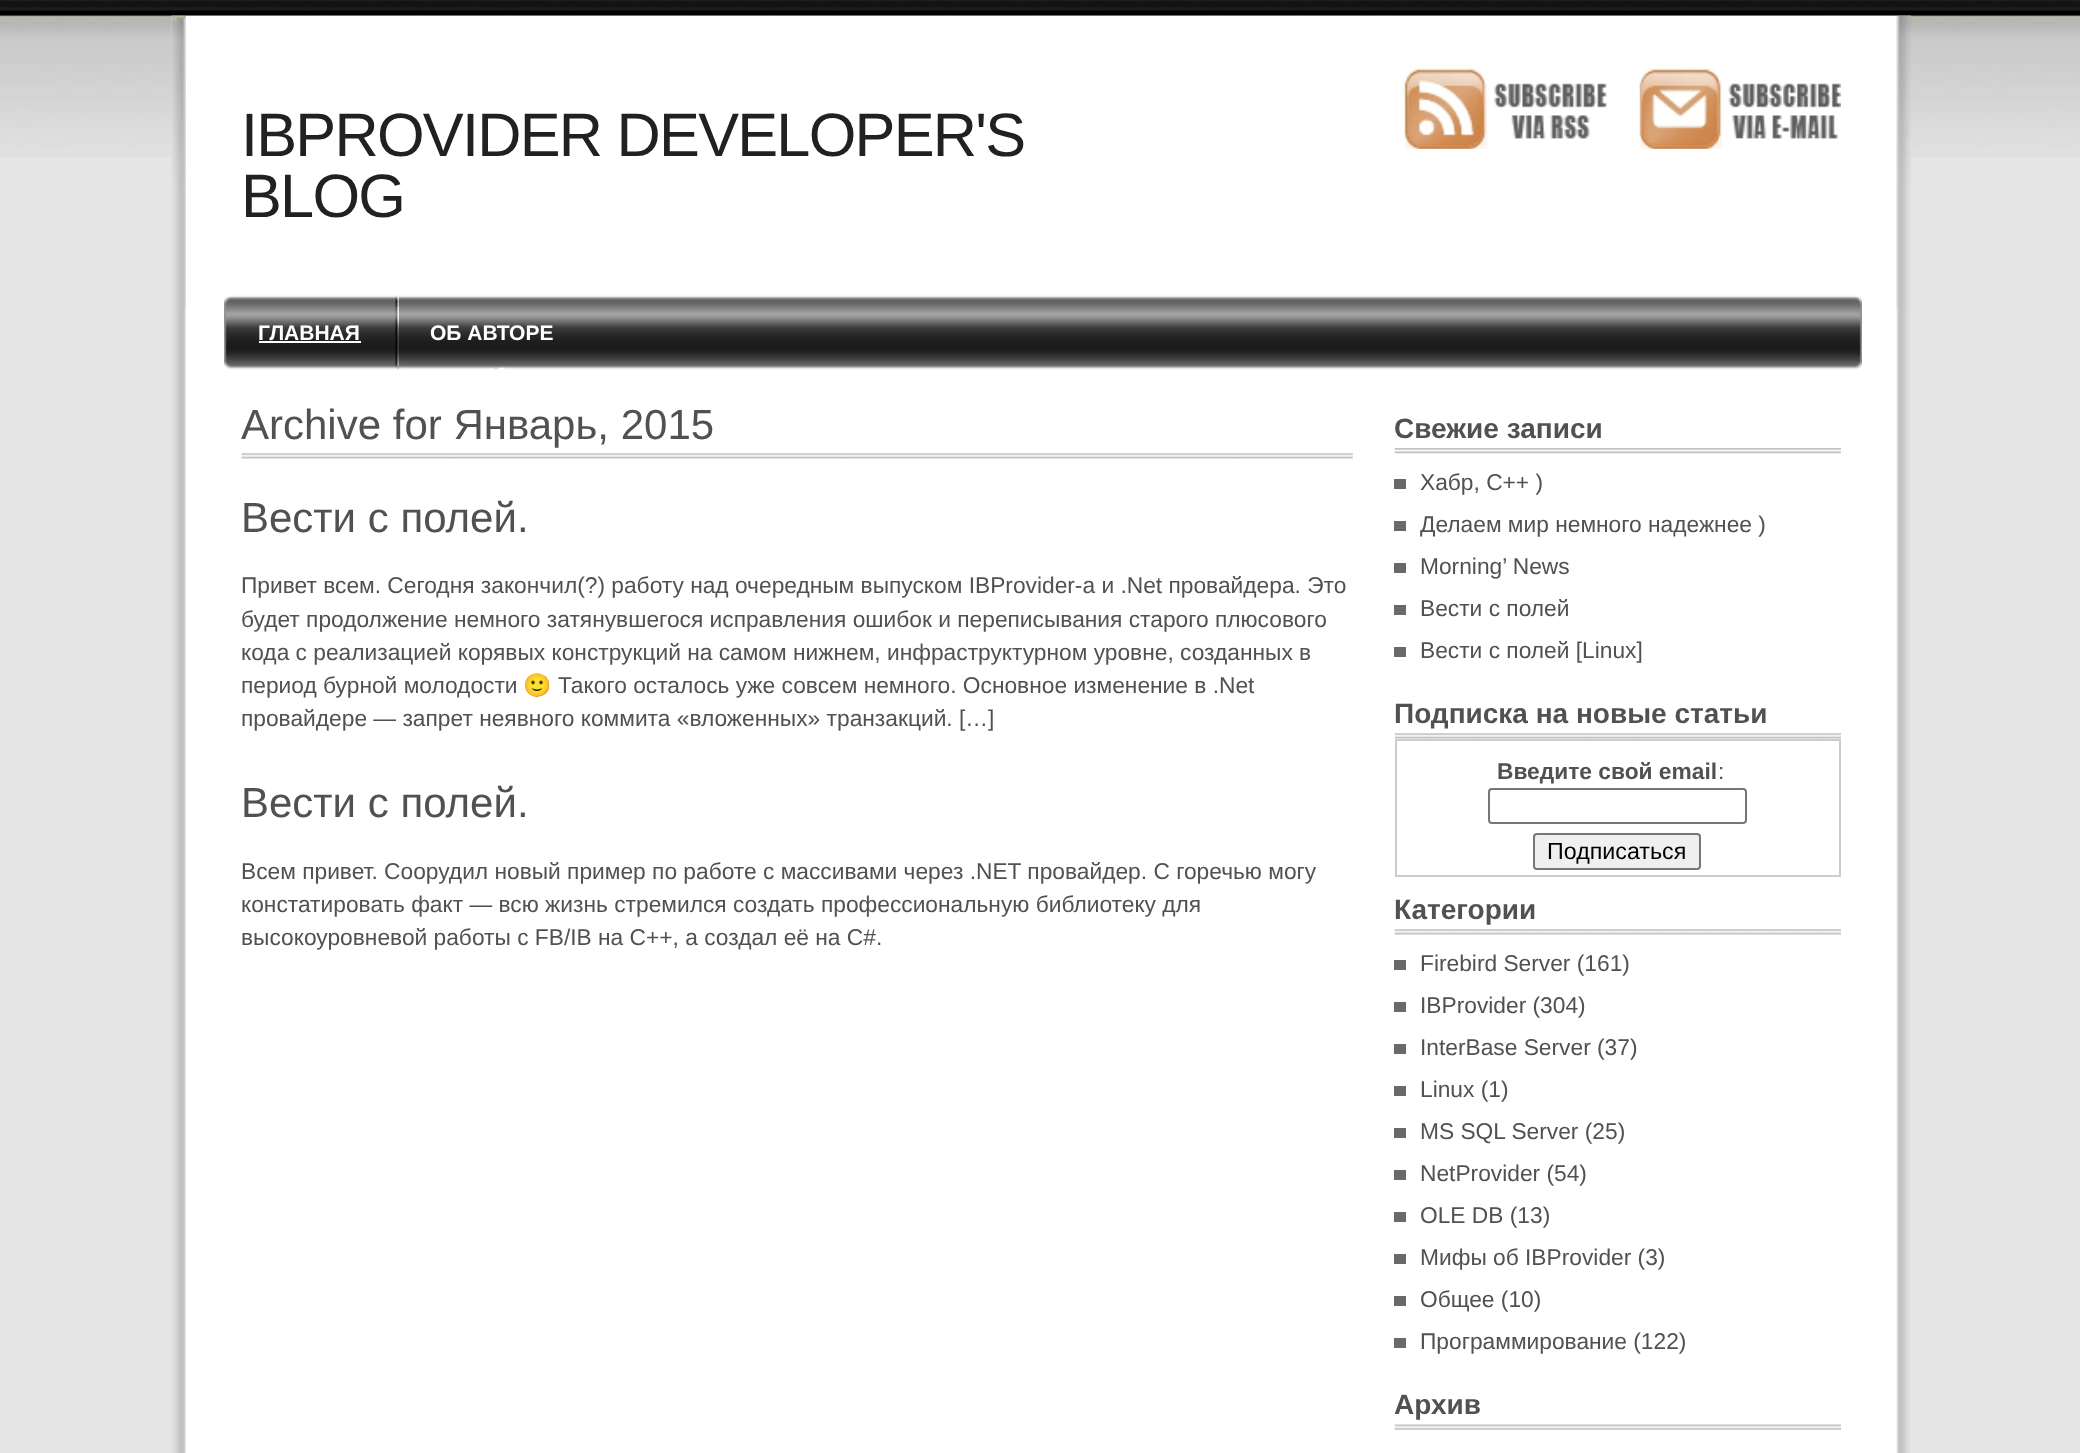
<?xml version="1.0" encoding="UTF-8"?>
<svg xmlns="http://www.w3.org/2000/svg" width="2080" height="1453">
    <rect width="100%" height="100%" fill="#E5E5E5"/>
    <image x="0" y="0" width="2080" height="157" href="img_01.png"/>
    <image x="171" y="15" width="1740" height="1438" href="img_02.png"/>
    <image x="171" y="15" width="1740" height="293" href="img_03.png"/>
    <text font-family="Liberation Sans" font-size="61.25" letter-spacing="-1.75" fill="#212121">
        <tspan x="241" y="156">IBPROVIDER DEVELOPER'S</tspan>
        <tspan x="241" y="217">BLOG</tspan>
    </text>
    <image x="1403" y="68" width="204" height="81" href="img_04.png"/>
    <image x="1639" y="68" width="202" height="81" href="img_05.png"/>
    <image x="224" y="295" width="1638" height="75" href="img_06.png"/>
    <text x="258" y="340" font-family="Liberation Sans" font-size="21" font-weight="700" fill="#FFFFFF">ГЛАВНАЯ</text>
    <rect x="259" y="341" width="102" height="2" fill="#FFFFFF"/>
    <image x="395" y="295" width="4" height="75" href="img_07.png"/>
    <text x="430" y="340" font-family="Liberation Sans" font-size="21" font-weight="700" fill="#FFFFFF">ОБ АВТОРЕ</text>
    <image x="241" y="453" width="1112" height="6" href="img_08.png"/>
    <text x="241" y="439" font-family="Liberation Sans" font-size="42" fill="#515151">Archive for Январь, 2015</text>
    <text x="241" y="532" font-family="Liberation Sans" font-size="42" fill="#515151">Вести с полей.</text>
    <text font-family="Liberation Sans" font-size="22.75" fill="#515151">
        <tspan x="241" y="593">Привет всем. Сегодня закончил(?) работу над очередным выпуском IBProvider-а и .Net провайдера. Это</tspan>
        <tspan x="241" y="627">будет продолжение немного затянувшегося исправления ошибок и переписывания старого плюсового</tspan>
        <tspan x="241" y="660">кода с реализацией корявых конструкций на самом нижнем, инфраструктурном уровне, созданных в</tspan>
        <tspan x="241" y="693">период бурной молодости</tspan>
    </text>
    <text x="523" y="693" font-family="Noto Color Emoji" font-size="22.75" fill="#515151">🙂</text>
    <text x="558" y="693" font-family="Liberation Sans" font-size="22.75" fill="#515151">Такого осталось уже совсем немного. Основное изменение в .Net</text>
    <text x="241" y="726" font-family="Liberation Sans" font-size="22.75" fill="#515151">провайдере — запрет неявного коммита «вложенных» транзакций. […]</text>
    <text x="241" y="817" font-family="Liberation Sans" font-size="42" fill="#515151">Вести с полей.</text>
    <text font-family="Liberation Sans" font-size="22.75" fill="#515151">
        <tspan x="241" y="879">Всем привет. Соорудил новый пример по работе с массивами через .NET провайдер. С горечью могу</tspan>
        <tspan x="241" y="912">констатировать факт — всю жизнь стремился создать профессиональную библиотеку для</tspan>
        <tspan x="241" y="945">высокоуровневой работы с FB/IB на C++, а создал её на C#.</tspan>
    </text>
    <image x="1394" y="448" width="447" height="6" href="img_09.png"/>
    <text x="1394" y="438" font-family="Liberation Sans" font-size="28" font-weight="700" fill="#515151">Свежие записи</text>
    <rect x="1394" y="479" width="12" height="10" fill="#696969"/>
    <text x="1420" y="490" font-family="Liberation Sans" font-size="22.75" fill="#515151">Хабр, C++ )</text>
    <rect x="1394" y="521" width="12" height="10" fill="#696969"/>
    <text x="1420" y="532" font-family="Liberation Sans" font-size="22.75" fill="#515151">Делаем мир немного надежнее )</text>
    <rect x="1394" y="563" width="12" height="10" fill="#696969"/>
    <text x="1420" y="574" font-family="Liberation Sans" font-size="22.75" fill="#515151">Morning’ News</text>
    <rect x="1394" y="605" width="12" height="10" fill="#696969"/>
    <text x="1420" y="616" font-family="Liberation Sans" font-size="22.75" fill="#515151">Вести с полей</text>
    <rect x="1394" y="647" width="12" height="10" fill="#696969"/>
    <text x="1420" y="658" font-family="Liberation Sans" font-size="22.75" fill="#515151">Вести с полей [Linux]</text>
    <image x="1394" y="733" width="447" height="6" href="img_10.png"/>
    <text x="1394" y="723" font-family="Liberation Sans" font-size="28" font-weight="700" fill="#515151">Подписка на новые статьи</text>
    <rect x="1396" y="740" width="444" height="136" fill="none" stroke="#CCCCCC" stroke-width="2"/>
    <text x="1497" y="779" font-family="Liberation Sans" font-size="22.75" font-weight="700" fill="#515151">Введите свой email</text>
    <text x="1718" y="779" font-family="Liberation Sans" font-size="22.75" fill="#515151">:</text>
    <rect x="1489" y="789" width="257" height="34" rx="3" fill="none" stroke="#767676" stroke-width="2"/>
    <rect x="1534" y="834" width="166" height="35" rx="3" fill="#EFEFEF" stroke="#767676" stroke-width="2"/>
    <text x="1547" y="859" font-family="Liberation Sans" font-size="23.25" fill="#000000">Подписаться</text>
    <image x="1394" y="929" width="447" height="6" href="img_10.png"/>
    <text x="1394" y="919" font-family="Liberation Sans" font-size="28" font-weight="700" fill="#515151">Категории</text>
    <rect x="1394" y="960" width="12" height="10" fill="#696969"/>
    <text x="1420" y="971" font-family="Liberation Sans" font-size="22.75" fill="#515151">Firebird Server (161)</text>
    <rect x="1394" y="1002" width="12" height="10" fill="#696969"/>
    <text x="1420" y="1013" font-family="Liberation Sans" font-size="22.75" fill="#515151">IBProvider (304)</text>
    <rect x="1394" y="1044" width="12" height="10" fill="#696969"/>
    <text x="1420" y="1055" font-family="Liberation Sans" font-size="22.75" fill="#515151">InterBase Server (37)</text>
    <rect x="1394" y="1086" width="12" height="10" fill="#696969"/>
    <text x="1420" y="1097" font-family="Liberation Sans" font-size="22.75" fill="#515151">Linux (1)</text>
    <rect x="1394" y="1128" width="12" height="10" fill="#696969"/>
    <text x="1420" y="1139" font-family="Liberation Sans" font-size="22.75" fill="#515151">MS SQL Server (25)</text>
    <rect x="1394" y="1170" width="12" height="10" fill="#696969"/>
    <text x="1420" y="1181" font-family="Liberation Sans" font-size="22.75" fill="#515151">NetProvider (54)</text>
    <rect x="1394" y="1212" width="12" height="10" fill="#696969"/>
    <text x="1420" y="1223" font-family="Liberation Sans" font-size="22.75" fill="#515151">OLE DB (13)</text>
    <rect x="1394" y="1254" width="12" height="10" fill="#696969"/>
    <text x="1420" y="1265" font-family="Liberation Sans" font-size="22.75" fill="#515151">Мифы об IBProvider (3)</text>
    <rect x="1394" y="1296" width="12" height="10" fill="#696969"/>
    <text x="1420" y="1307" font-family="Liberation Sans" font-size="22.75" fill="#515151">Общее (10)</text>
    <rect x="1394" y="1338" width="12" height="10" fill="#696969"/>
    <text x="1420" y="1349" font-family="Liberation Sans" font-size="22.75" fill="#515151">Программирование (122)</text>
    <image x="1394" y="1424" width="447" height="6" href="img_11.png"/>
    <text x="1394" y="1414" font-family="Liberation Sans" font-size="28" font-weight="700" fill="#515151">Архив</text>
</svg>
